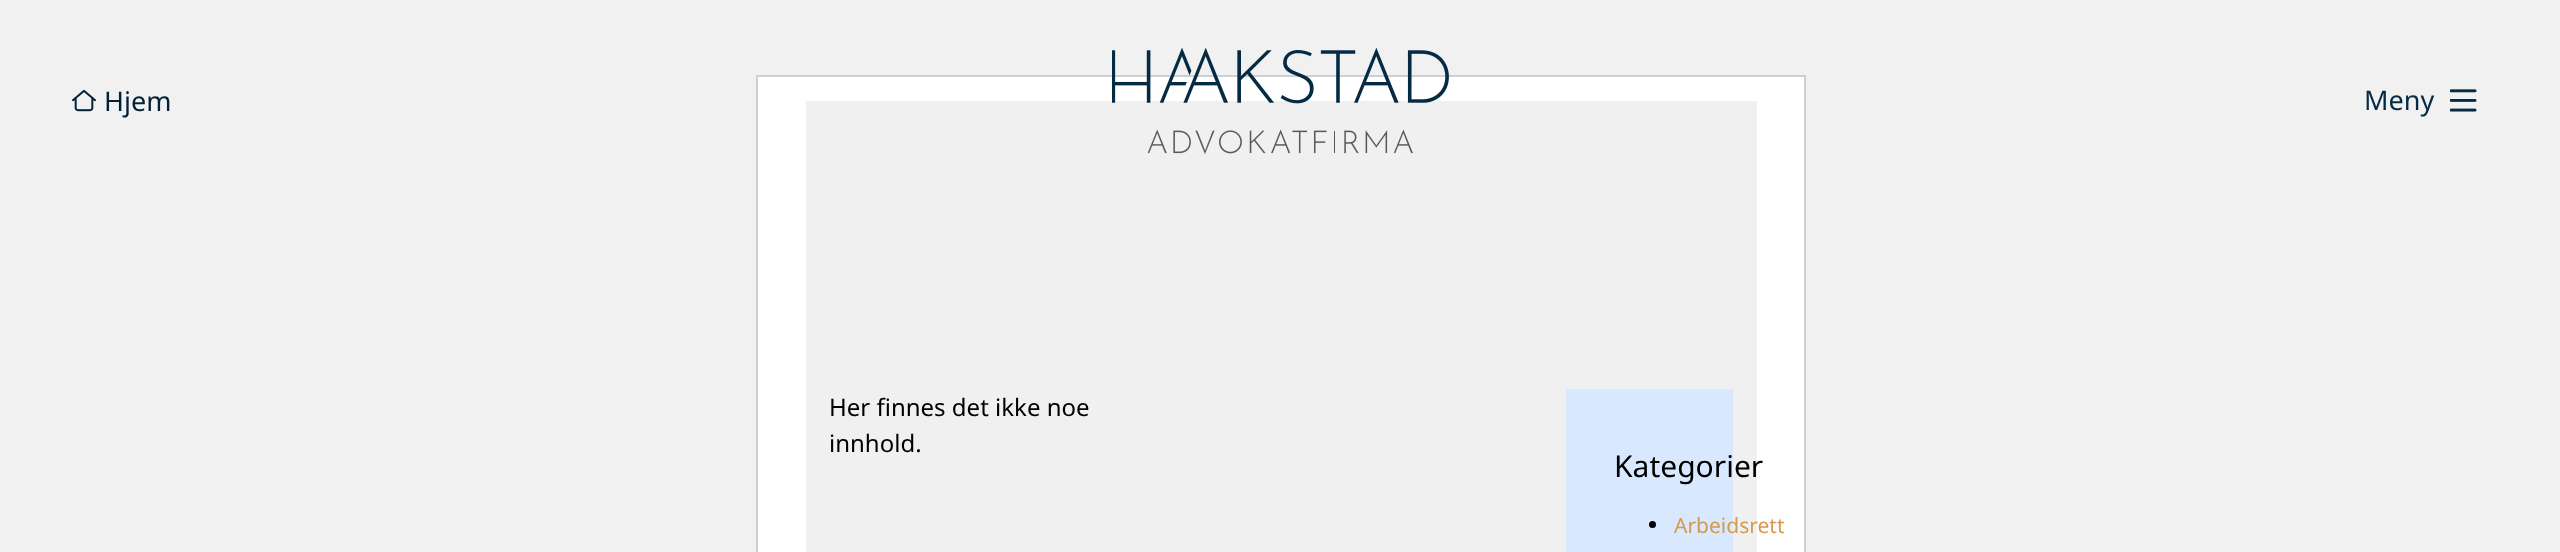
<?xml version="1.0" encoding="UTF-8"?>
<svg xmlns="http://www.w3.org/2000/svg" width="2560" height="552">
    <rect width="100%" height="100%" fill="#F1F1F1"/>
    <rect x="757" y="76" width="1048" height="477" fill="#FFFFFF" stroke="#CCD0D4" stroke-width="2"/>
    <image x="72" y="89" width="24" height="23" href="img_01.png"/>
    <text x="104" y="111" font-family="Noto Sans" font-size="27" fill="#002136">Hjem</text>
    <rect x="806" y="101" width="951" height="451" fill="#F0F0F0"/>
    <image x="1112" y="48" width="337" height="106" href="img_02.png"/>
    <text x="2364" y="110" font-family="Noto Sans" font-size="27" fill="#052B44">Meny</text>
    <image x="2450" y="89" width="27" height="23" href="img_03.png"/>
    <text font-family="Noto Sans" font-size="24" fill="#000000">
        <tspan x="829" y="416">Her finnes det ikke noe</tspan>
        <tspan x="829" y="452">innhold.</tspan>
    </text>
    <rect x="1566" y="389" width="167" height="163" fill="#D8E9FF"/>
    <text x="1614" y="477" font-family="Noto Sans" font-size="30" fill="#000000">Kategorier</text>
    <circle cx="1652.5" cy="524.5" r="3.5" fill="#000000"/>
    <text x="1674" y="533" font-family="Noto Sans" font-size="21" fill="#D59A4C">Arbeidsrett</text>
</svg>
